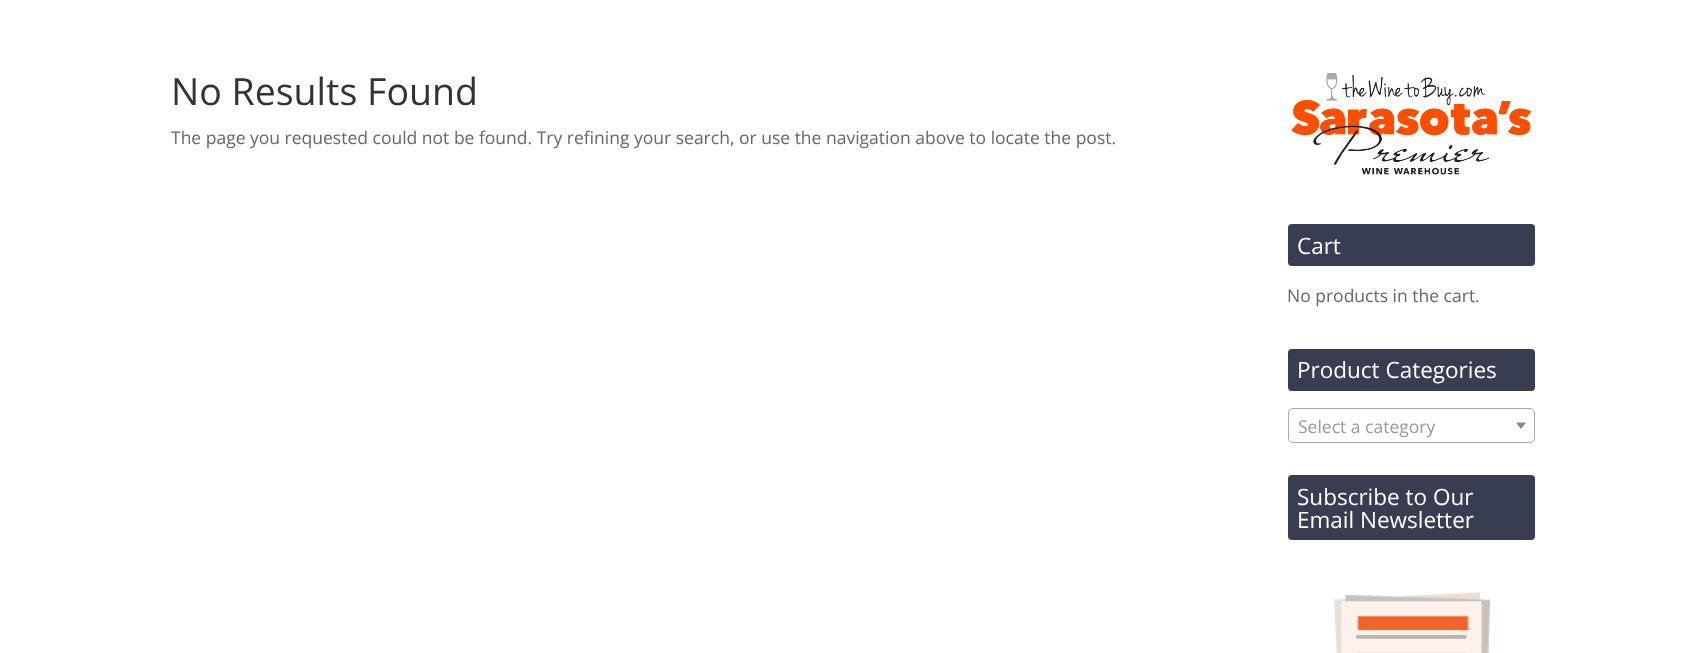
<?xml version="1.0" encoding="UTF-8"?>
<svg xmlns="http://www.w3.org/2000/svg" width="1705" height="653">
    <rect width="100%" height="100%" fill="#FFFFFF"/>
    <text x="171" y="105" font-family="Open Sans" font-size="37.5" fill="#333333">No Results Found</text>
    <text x="171" y="144" font-family="Open Sans" font-size="17.5" fill="#666666">The page you requested could not be found. Try refining your search, or use the navigation above to locate the post.</text>
    <image x="1291" y="73" width="241" height="102" href="img_01.png"/>
    <rect x="1288" y="224" width="247" height="42" rx="4" fill="#393D52"/>
    <text x="1297" y="254" font-family="Open Sans" font-size="22.5" fill="#FFFFFF">Cart</text>
    <text x="1287" y="302" font-family="Open Sans" font-size="17.5" fill="#666666">No products in the cart.</text>
    <rect x="1288" y="349" width="247" height="42" rx="4" fill="#393D52"/>
    <text x="1297" y="378" font-family="Open Sans" font-size="22.5" fill="#FFFFFF">Product Categories</text>
    <rect x="1288.5" y="408.5" width="246" height="34" rx="4.5" fill="none" stroke="#AAAAAA"/>
    <text x="1298" y="433" font-family="Open Sans" font-size="17.5" fill="#999999">Select a category</text>
    <path d="M 1516 422.5 H 1526 L 1521 429 Z" fill="#888888"/>
    <rect x="1288" y="475" width="247" height="65" rx="4" fill="#393D52"/>
    <text font-family="Open Sans" font-size="22.5" fill="#FFFFFF">
        <tspan x="1297" y="505">Subscribe to Our</tspan>
        <tspan x="1297" y="528">Email Newsletter</tspan>
    </text>
    <image x="1333" y="592" width="158" height="61" href="img_02.png"/>
</svg>
